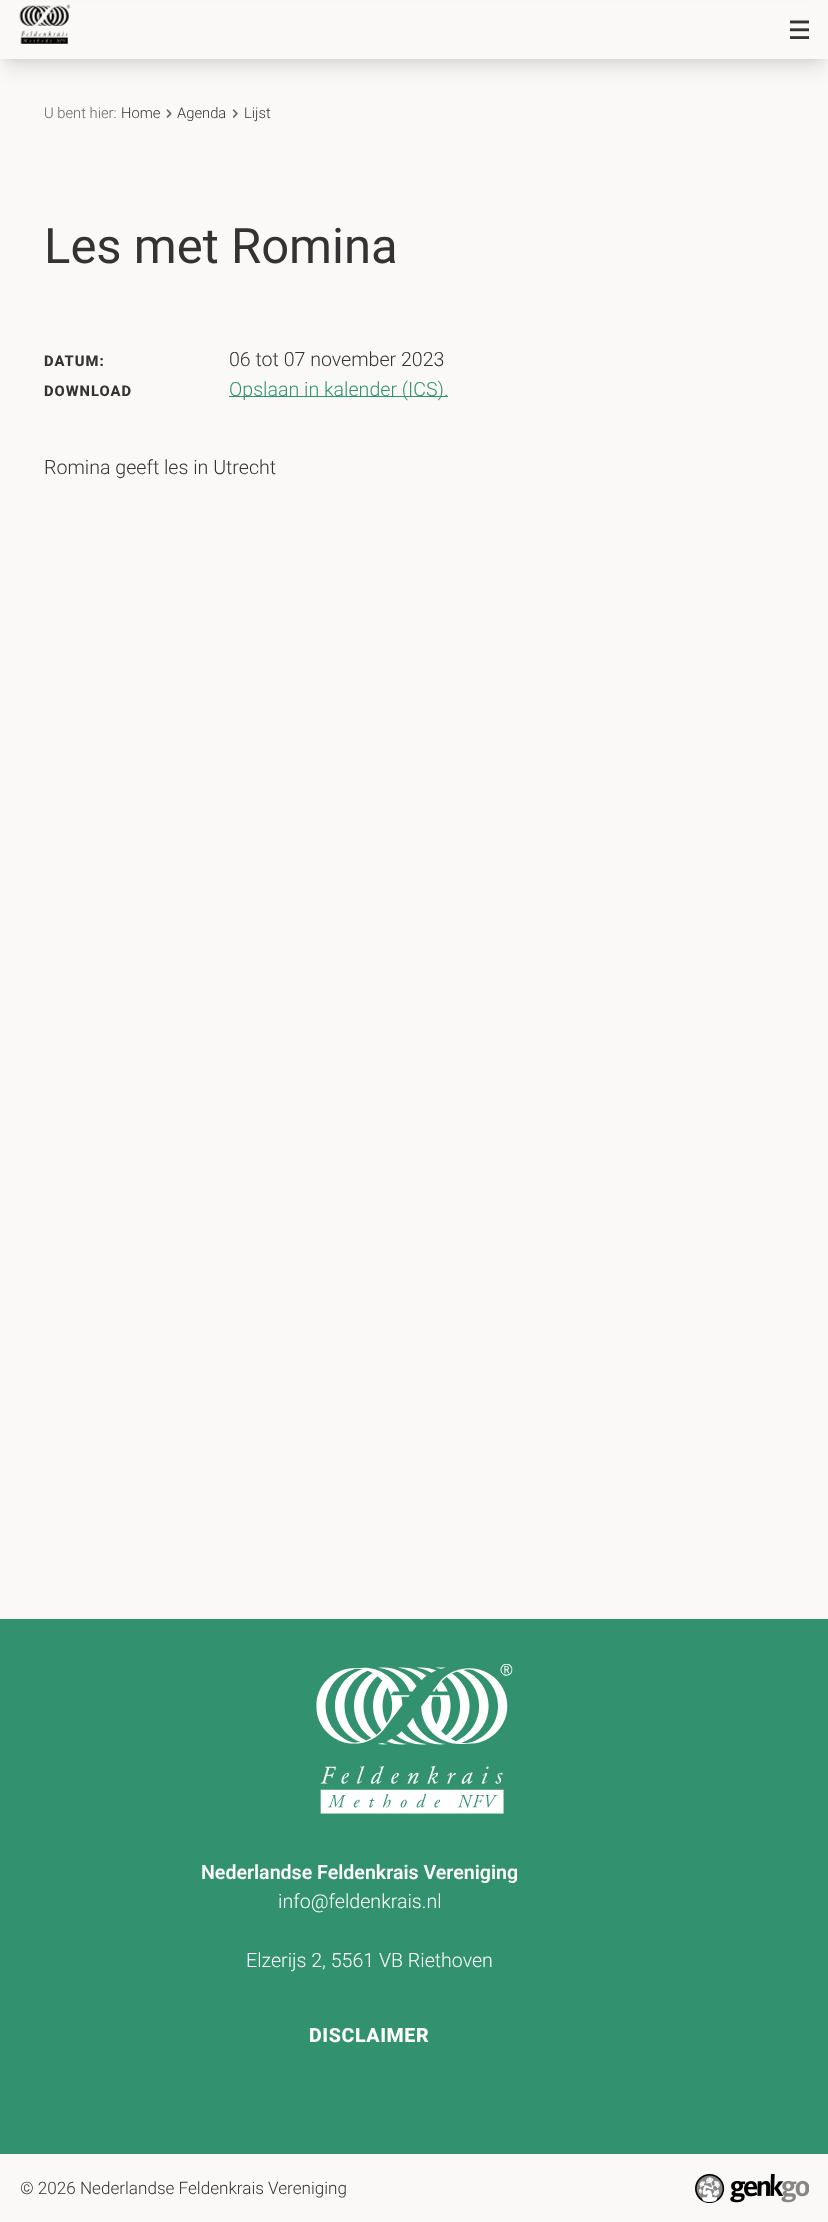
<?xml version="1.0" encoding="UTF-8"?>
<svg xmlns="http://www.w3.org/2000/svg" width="828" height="2222">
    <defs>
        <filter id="blur1" x="-50%" y="-200%" width="200%" height="500%"><feGaussianBlur stdDeviation="4"/></filter>
        <filter id="blur2" x="-50%" y="-200%" width="200%" height="500%"><feGaussianBlur stdDeviation="9.5"/></filter>
    </defs>
    <rect width="100%" height="100%" fill="#FAF9F8"/>
    <rect x="5" y="10" width="819" height="49" fill="#000000" fill-opacity="0.1" filter="url(#blur1)"/>
    <rect x="4" y="16" width="821" height="52" fill="#000000" fill-opacity="0.1" filter="url(#blur2)"/>
    <rect x="0" y="2" width="828" height="57" fill="#FAF9F8"/>
    <image x="19" y="4" width="51" height="40" href="img_01.png"/>
    <image x="790" y="20" width="19" height="19" href="img_02.png"/>
    <text x="44" y="118" font-family="Roboto" font-size="14.75" font-weight="300" fill="#656564">U bent hier:</text>
    <text x="121" y="118" font-family="Roboto" font-size="14.75" font-weight="300" fill="#333333">Home</text>
    <image x="166" y="109" width="6" height="9" href="img_03.png"/>
    <text x="177" y="118" font-family="Roboto" font-size="14.75" font-weight="300" fill="#333333">Agenda</text>
    <image x="232" y="109" width="6" height="9" href="img_04.png"/>
    <text x="244" y="118" font-family="Roboto" font-size="14.75" font-weight="300" fill="#333333">Lijst</text>
    <text x="44" y="263" font-family="Roboto" font-size="49" fill="#333333">Les met Romina</text>
    <text x="44" y="366" font-family="Roboto" font-size="14.75" font-weight="800" letter-spacing="1" fill="#333333">DATUM:</text>
    <text x="229" y="366" font-family="Roboto" font-size="19.6" font-weight="300" fill="#333333">06 tot 07 november 2023</text>
    <text x="44" y="396" font-family="Roboto" font-size="14.75" font-weight="800" letter-spacing="1" fill="#333333">DOWNLOAD</text>
    <rect x="229" y="396" width="219" height="1" fill="#329270"/>
    <text x="229" y="396" font-family="Roboto" font-size="19.6" font-weight="300" fill="#329270">Opslaan in kalender (ICS).</text>
    <text x="44" y="474" font-family="Roboto" font-size="19.6" font-weight="300" fill="#333333">Romina geeft les in Utrecht</text>
    <rect x="0" y="1619" width="828" height="535" fill="#329270"/>
    <image x="316" y="1664" width="197" height="150" href="img_05.png"/>
    <text x="201" y="1879" font-family="Roboto" font-size="19.6" font-weight="600" fill="#FFFFFF">Nederlandse Feldenkrais Vereniging</text>
    <text x="278" y="1908" font-family="Roboto" font-size="19.6" font-weight="300" fill="#FFFFFF">info@feldenkrais.nl</text>
    <text x="246" y="1967" font-family="Roboto" font-size="19.6" font-weight="300" fill="#FFFFFF">Elzerijs 2, 5561 VB Riethoven</text>
    <text x="309" y="2042" font-family="Roboto" font-size="19.6" font-weight="800" letter-spacing="0.6" fill="#FFFFFF">DISCLAIMER</text>
    <text x="20" y="2194" font-family="Roboto" font-size="17.1" font-weight="300" fill="#333333">© 2026 Nederlandse Feldenkrais Vereniging</text>
    <image x="695" y="2174" width="114" height="29" href="img_06.png"/>
</svg>
